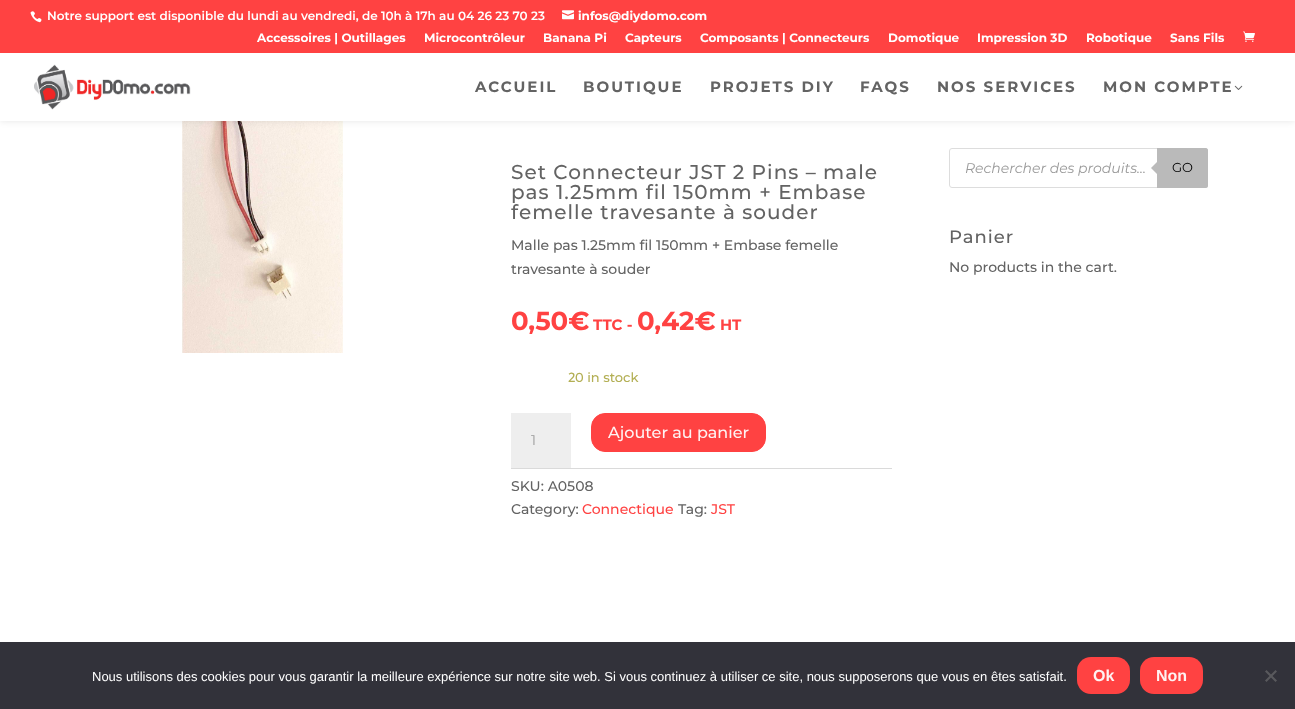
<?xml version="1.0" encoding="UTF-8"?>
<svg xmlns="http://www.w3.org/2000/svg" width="1295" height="709">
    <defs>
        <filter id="blur1" x="-50%" y="-200%" width="200%" height="500%"><feGaussianBlur stdDeviation="3.5"/></filter>
    </defs>
    <rect width="100%" height="100%" fill="#FFFFFF"/>
    <image x="182" y="121" width="161" height="232" href="img_06.png"/>
    <rect x="0" y="53" width="1295" height="68" fill="#000000" fill-opacity="0.1" filter="url(#blur1)"/>
    <rect x="0" y="0" width="1295" height="53" fill="#FF4242"/>
    <image x="30" y="11" width="12" height="12" href="img_01.png"/>
    <text x="47" y="20" font-family="'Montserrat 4'" font-size="12" font-weight="100" fill="#FFFFFF">Notre support est disponible du lundi au vendredi, de 10h à 17h au 04 26 23 70 23</text>
    <image x="562" y="10" width="12" height="10" href="img_02.png"/>
    <text x="578" y="20" font-family="'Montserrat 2'" font-size="12" font-weight="100" fill="#FFFFFF">infos@diydomo.com</text>
    <text x="257" y="42" font-family="'Montserrat 2'" font-size="12" font-weight="100" fill="#FFFFFF">Accessoires | Outillages</text>
    <text x="424" y="42" font-family="'Montserrat 2'" font-size="12" font-weight="100" fill="#FFFFFF">Microcontrôleur</text>
    <text x="543" y="42" font-family="'Montserrat 2'" font-size="12" font-weight="100" fill="#FFFFFF">Banana Pi</text>
    <text x="625" y="42" font-family="'Montserrat 2'" font-size="12" font-weight="100" fill="#FFFFFF">Capteurs</text>
    <text x="700" y="42" font-family="'Montserrat 2'" font-size="12" font-weight="100" fill="#FFFFFF">Composants | Connecteurs</text>
    <text x="888" y="42" font-family="'Montserrat 2'" font-size="12" font-weight="100" fill="#FFFFFF">Domotique</text>
    <text x="977" y="42" font-family="'Montserrat 2'" font-size="12" font-weight="100" fill="#FFFFFF">Impression 3D</text>
    <text x="1086" y="42" font-family="'Montserrat 2'" font-size="12" font-weight="100" fill="#FFFFFF">Robotique</text>
    <text x="1170" y="42" font-family="'Montserrat 2'" font-size="12" font-weight="100" fill="#FFFFFF">Sans Fils</text>
    <image x="1243" y="31" width="12" height="11" href="img_03.png"/>
    <rect x="0" y="53" width="1295" height="68" fill="#FFFFFF"/>
    <image x="34" y="64" width="157" height="46" href="img_04.png"/>
    <text x="475" y="92" font-family="'Montserrat 2'" font-size="15" font-weight="100" letter-spacing="2" fill="#636363">ACCUEIL</text>
    <text x="583" y="92" font-family="'Montserrat 2'" font-size="15" font-weight="100" letter-spacing="2" fill="#636363">BOUTIQUE</text>
    <text x="710" y="92" font-family="'Montserrat 2'" font-size="15" font-weight="100" letter-spacing="2" fill="#636363">PROJETS DIY</text>
    <text x="860" y="92" font-family="'Montserrat 2'" font-size="15" font-weight="100" letter-spacing="2" fill="#636363">FAQS</text>
    <text x="937" y="92" font-family="'Montserrat 2'" font-size="15" font-weight="100" letter-spacing="2" fill="#636363">NOS SERVICES</text>
    <text x="1103" y="92" font-family="'Montserrat 2'" font-size="15" font-weight="100" letter-spacing="2" fill="#636363">MON COMPTE</text>
    <image x="1234" y="85" width="9" height="5" href="img_05.png"/>
    <text font-family="Montserrat" font-size="20" font-weight="100" letter-spacing="1" fill="#636363">
        <tspan x="511" y="179">Set Connecteur JST 2 Pins – male</tspan>
        <tspan x="511" y="199">pas 1.25mm fil 150mm + Embase</tspan>
        <tspan x="511" y="219">femelle travesante à souder</tspan>
    </text>
    <text font-family="Montserrat" font-size="14" font-weight="100" fill="#636363">
        <tspan x="511" y="250">Malle pas 1.25mm fil 150mm + Embase femelle</tspan>
        <tspan x="511" y="274">travesante à souder</tspan>
    </text>
    <text x="511" y="330" font-family="'Montserrat 2'" font-size="26" font-weight="100" fill="#FF4242">0,50€</text>
    <text x="593" y="330" font-family="'Montserrat 2'" font-size="15" font-weight="100" fill="#FF4242">TTC -</text>
    <text x="637" y="330" font-family="'Montserrat 2'" font-size="26" font-weight="100" fill="#FF4242">0,42€</text>
    <text x="720" y="330" font-family="'Montserrat 2'" font-size="15" font-weight="100" fill="#FF4242">HT</text>
    <text x="568" y="382" font-family="Noto Sans" font-size="13" font-weight="500" fill="#B3AF54">2</text>
    <text x="575" y="382" font-family="Montserrat" font-size="13" font-weight="100" fill="#B3AF54">0 in stock</text>
    <rect x="511" y="413" width="60" height="55" fill="#EEEEEE"/>
    <text x="531" y="445" font-family="'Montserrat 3'" font-size="14" font-weight="100" fill="#999999">1</text>
    <rect x="591.5" y="413.5" width="174" height="38" rx="13.5" fill="#FF4242" stroke="#FF4242"/>
    <text x="608" y="438" font-family="Montserrat" font-size="16" font-weight="100" fill="#FFF2F2">Ajouter au panier</text>
    <rect x="511" y="468" width="381" height="1" fill="#DADADA"/>
    <text font-family="Montserrat" font-size="14" font-weight="100" fill="#636363">
        <tspan x="511" y="491">SKU: A0508</tspan>
        <tspan x="511" y="514">Category:</tspan>
    </text>
    <text x="582" y="514" font-family="Montserrat" font-size="14" font-weight="100" fill="#FF4242">Connectique</text>
    <text x="678" y="514" font-family="Montserrat" font-size="14" font-weight="100" fill="#636363">Tag:</text>
    <text x="711" y="514" font-family="Montserrat" font-size="14" font-weight="100" fill="#FF4242">JST</text>
    <rect x="949.5" y="148.5" width="258" height="39" rx="2.5" fill="none" stroke="#DDDDDD"/>
    <text x="965" y="173" font-family="Montserrat" font-size="14" font-weight="100" font-style="italic" fill="#999999">Rechercher des produits...</text>
    <path d="M 1157 148 H 1206 C 1207 148 1208 149 1208 150 V 186 C 1208 187 1207 188 1206 188 H 1157 Z" fill="#BABABA"/>
    <path d="M 1159 160 V 176 L 1151 168 Z" fill="#BABABA"/>
    <text x="1172" y="172" font-family="'Montserrat 3'" font-size="13" font-weight="100" fill="#000000">GO</text>
    <text x="949" y="243" font-family="Montserrat" font-size="18" font-weight="100" letter-spacing="1" fill="#636363">Panier</text>
    <text x="949" y="272" font-family="Montserrat" font-size="14" font-weight="100" fill="#636363">No products in the cart.</text>
    <rect x="0" y="642" width="1295" height="67" fill="#32323A"/>
    <text x="92" y="681" font-family="Liberation Sans" font-size="13" fill="#FFFFFF">Nous utilisons des cookies pour vous garantir la meilleure expérience sur notre site web. Si vous continuez à utiliser ce site, nous supposerons que vous en êtes satisfait.</text>
    <rect x="1077" y="657" width="53" height="37" rx="14" fill="#FF4242"/>
    <text x="1093" y="681" font-family="Liberation Sans" font-size="16" font-weight="700" fill="#FFF2F2">Ok</text>
    <rect x="1140" y="657" width="63" height="37" rx="14" fill="#FF4242"/>
    <text x="1156" y="681" font-family="Liberation Sans" font-size="16" font-weight="700" fill="#FFF2F2">Non</text>
    <path d="M 1275.5 670 L 1277 671.5 L 1266.5 682 L 1265 680.5 Z" fill="#59595D"/>
    <path d="M 1265 671.5 L 1266.5 670 L 1277 680.5 L 1275.5 682 Z" fill="#59595D"/>
</svg>
